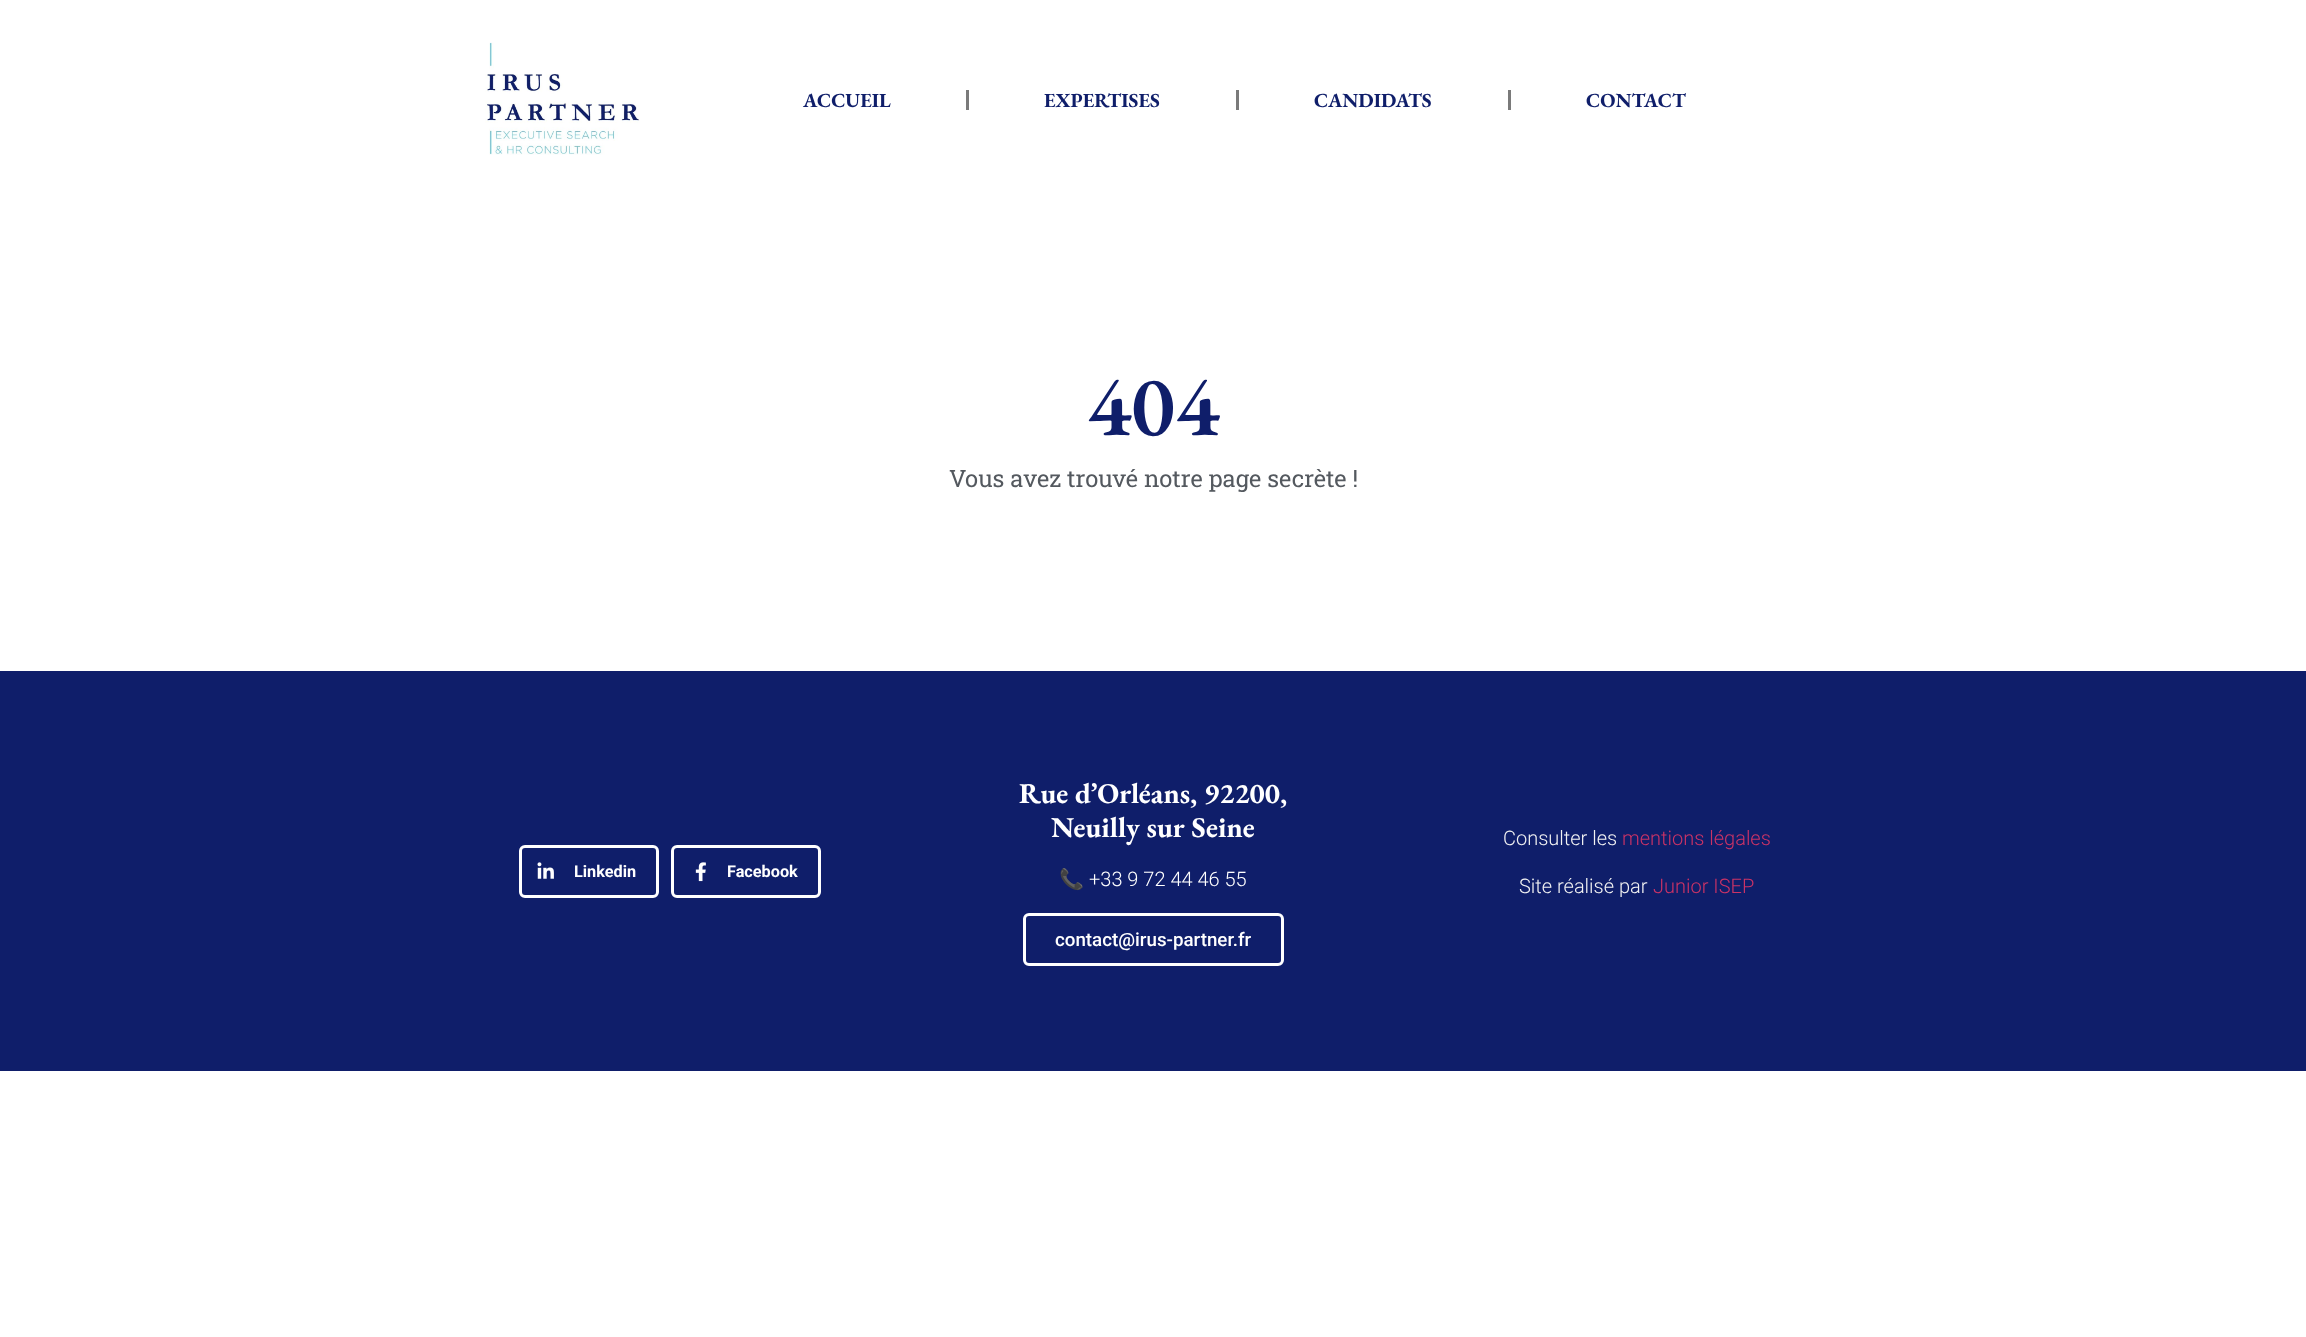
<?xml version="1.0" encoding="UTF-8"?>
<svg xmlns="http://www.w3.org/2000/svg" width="2306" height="1337">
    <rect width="100%" height="100%" fill="#FFFFFF"/>
    <image x="485" y="42" width="155" height="113" href="img_01.png"/>
    <text x="803" y="107" font-family="EB Garamond" font-size="20" font-weight="700" fill="#0F1E6A">ACCUEIL</text>
    <rect x="966" y="90" width="3" height="20" fill="#7A7A7A"/>
    <text x="1044" y="107" font-family="EB Garamond" font-size="20" font-weight="700" fill="#0F1E6A">EXPERTISES</text>
    <rect x="1236" y="90" width="3" height="20" fill="#7A7A7A"/>
    <text x="1314" y="107" font-family="EB Garamond" font-size="20" font-weight="700" fill="#0F1E6A">CANDIDATS</text>
    <rect x="1508" y="90" width="3" height="20" fill="#7A7A7A"/>
    <text x="1586" y="107" font-family="EB Garamond" font-size="20" font-weight="700" fill="#0F1E6A">CONTACT</text>
    <text x="1087" y="435" font-family="EB Garamond" font-size="86" font-weight="600" fill="#0F1E6A">404</text>
    <text x="949" y="487" font-family="Roboto Slab" font-size="23.75" fill="#54595F">Vous avez trouvé notre page secrète !</text>
    <rect x="0" y="671" width="2306" height="400" fill="#0F1E6A"/>
    <rect x="520.5" y="846.5" width="137" height="50" rx="4.5" fill="none" stroke="#FFFFFF" stroke-width="3"/>
    <image x="537" y="862" width="17" height="17" href="img_02.png"/>
    <text x="574" y="877" font-family="Roboto" font-size="16.25" font-weight="700" fill="#FFFFFF">Linkedin</text>
    <rect x="672.5" y="846.5" width="147" height="50" rx="4.5" fill="none" stroke="#FFFFFF" stroke-width="3"/>
    <image x="695" y="862" width="11" height="20" href="img_03.png"/>
    <text x="727" y="877" font-family="Roboto" font-size="16.25" font-weight="700" fill="#FFFFFF">Facebook</text>
    <text x="1019" y="803" font-family="EB Garamond" font-size="28.75" font-weight="700" fill="#FFFFFF">Rue d’Orléans, 92200,</text>
    <text x="1051" y="837" font-family="EB Garamond" font-size="28.75" font-weight="700" fill="#FFFFFF">Neuilly sur Seine</text>
    <text x="1059" y="886" font-family="Noto Color Emoji" font-size="20" fill="#FFFFFF">📞</text>
    <text x="1089" y="886" font-family="Roboto" font-size="20" font-weight="300" fill="#FFFFFF">+33 9 72 44 46 55</text>
    <rect x="1024.5" y="914.5" width="258" height="50" rx="4.5" fill="none" stroke="#FFFFFF" stroke-width="3"/>
    <text x="1055" y="946" font-family="Roboto" font-size="18.75" font-weight="500" fill="#FFFFFF">contact@irus-partner.fr</text>
    <text x="1503" y="845" font-family="Roboto" font-size="20" font-weight="300" fill="#F3F3F3">Consulter les</text>
    <text x="1622" y="845" font-family="Roboto" font-size="20" font-weight="300" fill="#CC3366">mentions légales</text>
    <text x="1519" y="893" font-family="Roboto" font-size="20" font-weight="300" fill="#F3F3F3">Site réalisé par</text>
    <text x="1653" y="893" font-family="Roboto" font-size="20" font-weight="300" fill="#CC3366">Junior ISEP</text>
</svg>
